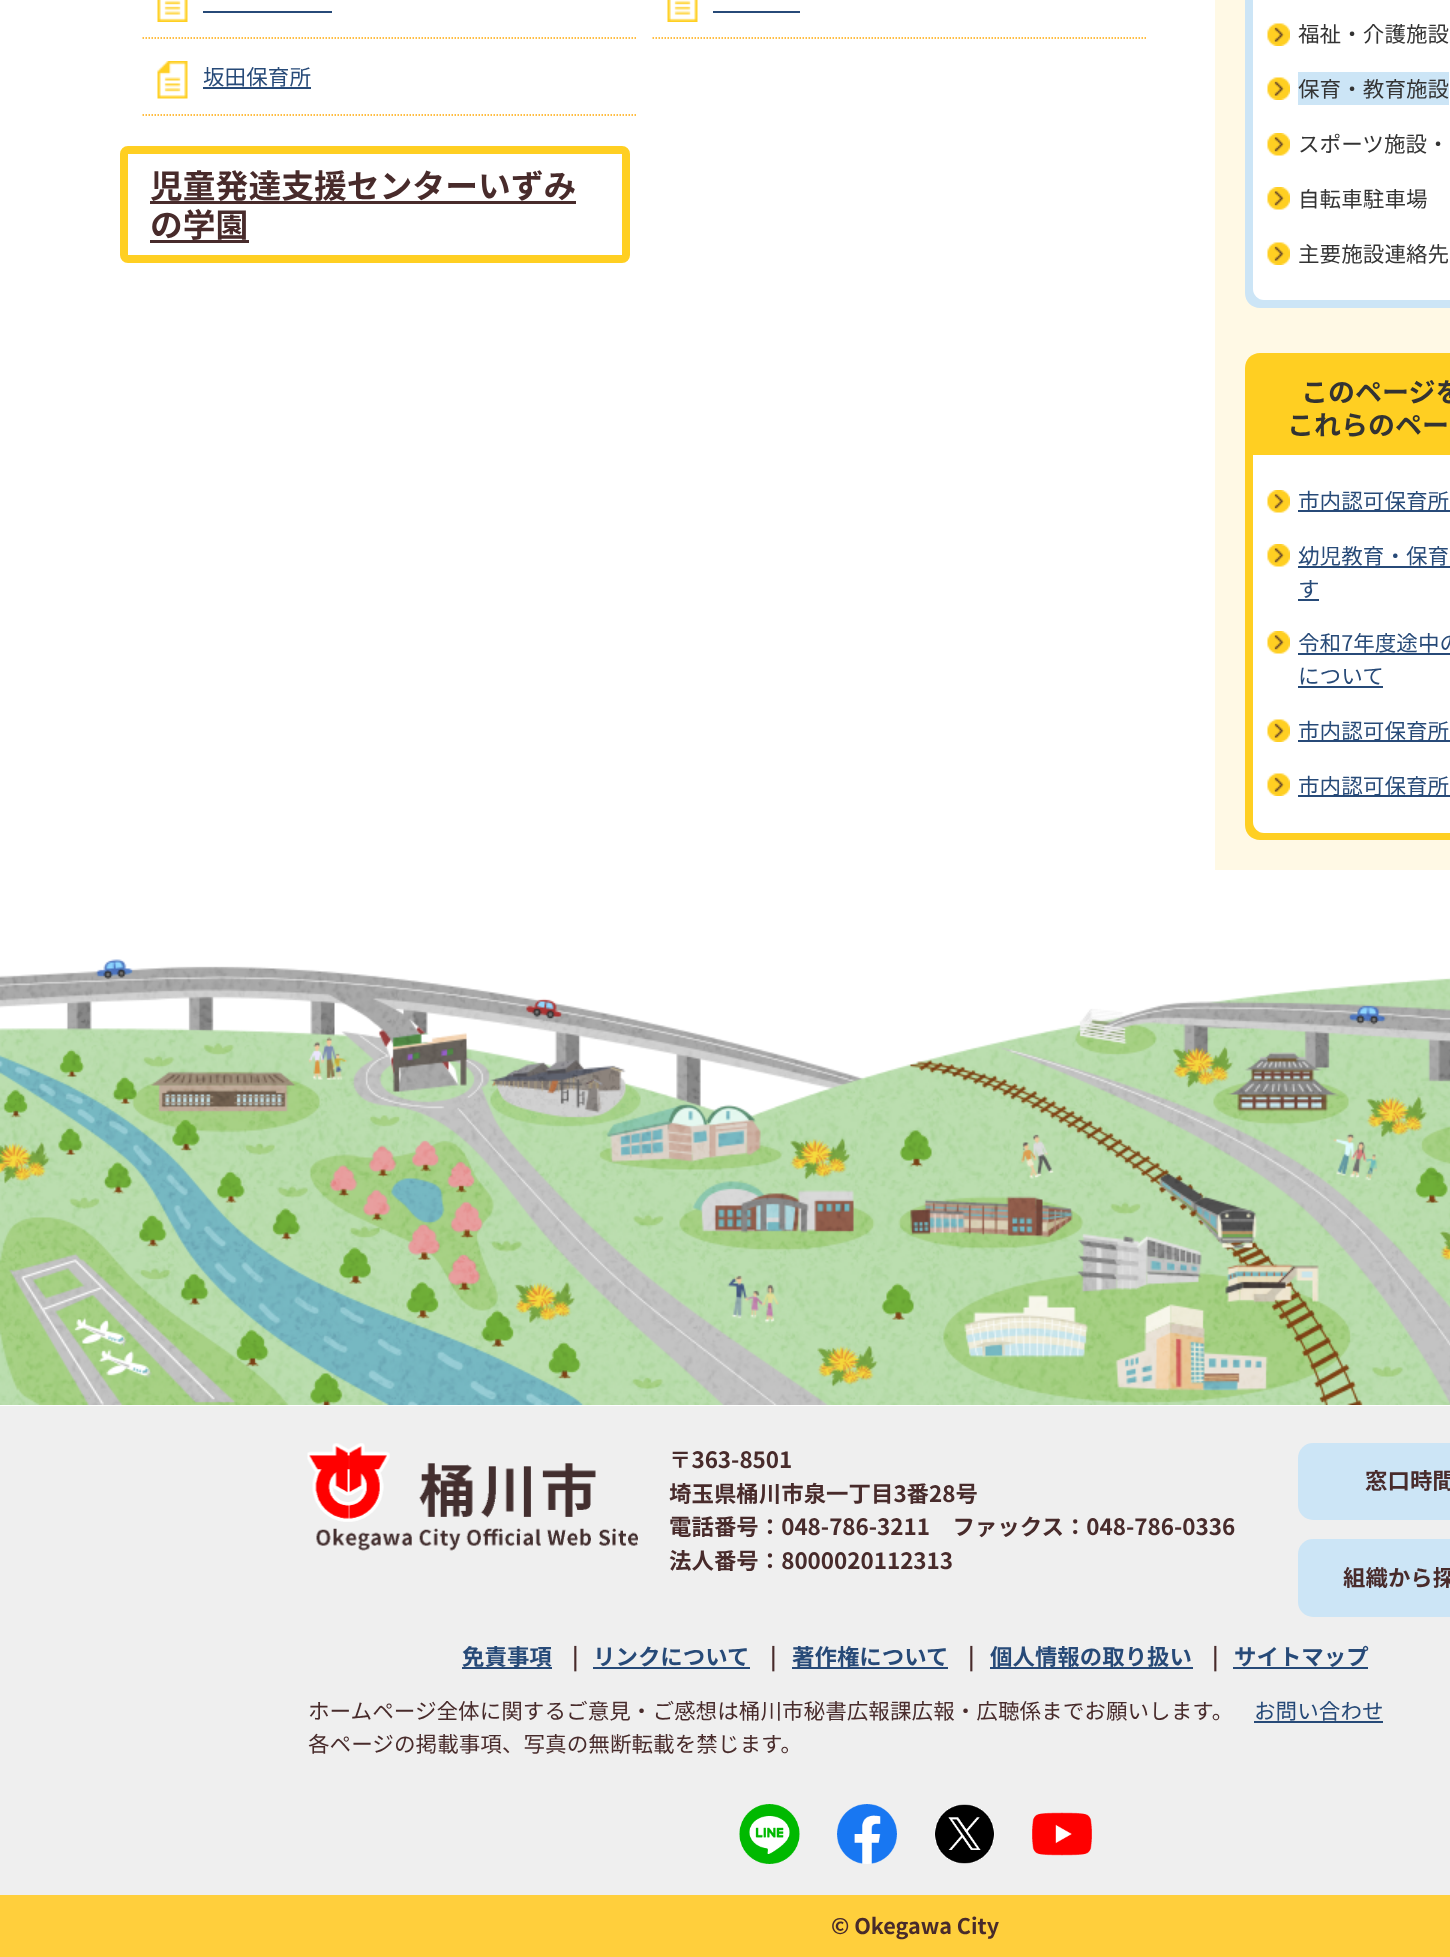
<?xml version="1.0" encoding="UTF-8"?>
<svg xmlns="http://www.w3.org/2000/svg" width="1450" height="1957">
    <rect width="100%" height="100%" fill="#FFFFFF"/>
    <rect x="1215" y="0" width="235" height="870" fill="#FFF9E5"/>
    <image x="157" y="0" width="31" height="22" href="img_01.png"/>
    <path d="M 142.5 38 H 637.5" fill="none" stroke="#FFA805" stroke-width="1.5" stroke-dasharray="1.5 1.5"/>
    <rect x="203" y="11" width="129" height="2" fill="#274A78"/>
    <image x="667" y="0" width="31" height="22" href="img_02.png"/>
    <path d="M 652.5 38 H 1147.5" fill="none" stroke="#FFA805" stroke-width="1.5" stroke-dasharray="1.5 1.5"/>
    <rect x="713" y="11" width="87" height="2" fill="#274A78"/>
    <image x="157" y="61" width="31" height="38" href="img_03.png"/>
    <path d="M 142.5 115 H 637.5" fill="none" stroke="#FFA805" stroke-width="1.5" stroke-dasharray="1.5 1.5"/>
    <text x="203" y="85" font-family="Noto Sans JP" font-size="21.6" fill="#274A78">坂田保育所</text>
    <rect x="203" y="87" width="108" height="2" fill="#274A78"/>
    <rect x="124" y="150" width="502" height="109" rx="4" fill="none" stroke="#FFCF22" stroke-width="8"/>
    <rect x="150" y="201" width="426" height="3" fill="#482B2B"/>
    <text font-family="Noto Sans JP" font-size="32.8" font-weight="700" fill="#482B2B">
        <tspan x="150" y="198">児童発達支援センターいずみ</tspan>
        <tspan x="150" y="237">の学園</tspan>
    </text>
    <rect x="150" y="240" width="99" height="3" fill="#482B2B"/>
    <path d="M 1245 -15 H 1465 V 293 C 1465 301.5 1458.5 308 1450 308 H 1260 C 1251.5 308 1245 301.5 1245 293 Z" fill="#CCE5F6"/>
    <path d="M 1253 -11 H 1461 V 289 C 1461 295 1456 300 1450 300 H 1264 C 1258 300 1253 295 1253 289 Z" fill="#FFFFFF"/>
    <image x="1267" y="23" width="23" height="23" href="img_04.png"/>
    <text x="1298" y="42" font-family="Noto Sans JP" font-size="21.6" fill="#333333">福祉・介護施設</text>
    <image x="1267" y="77" width="23" height="23" href="img_04.png"/>
    <rect x="1298" y="72" width="151" height="33" fill="#CCE5F6"/>
    <text x="1298" y="97" font-family="Noto Sans JP" font-size="21.6" fill="#333333">保育・教育施設</text>
    <image x="1267" y="133" width="23" height="23" href="img_05.png"/>
    <text x="1298" y="152" font-family="Noto Sans JP" font-size="21.6" fill="#333333">スポーツ施設・</text>
    <image x="1267" y="187" width="23" height="23" href="img_05.png"/>
    <text x="1298" y="207" font-family="Noto Sans JP" font-size="21.6" fill="#333333">自転車駐車場</text>
    <image x="1267" y="242" width="23" height="23" href="img_04.png"/>
    <text x="1298" y="262" font-family="Noto Sans JP" font-size="21.6" fill="#333333">主要施設連絡先</text>
    <path d="M 1260 353 H 1450 C 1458.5 353 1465 359.5 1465 368 V 455 H 1245 V 368 C 1245 359.5 1251.5 353 1260 353 Z" fill="#FFCF22"/>
    <text x="1301" y="402" font-family="Noto Sans JP" font-size="27" font-weight="700" fill="#333333">このページを</text>
    <text x="1287" y="435" font-family="Noto Sans JP" font-size="27" font-weight="700" fill="#333333">これらのペー</text>
    <path d="M 1245 455 H 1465 V 825 C 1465 833.5 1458.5 840 1450 840 H 1260 C 1251.5 840 1245 833.5 1245 825 Z" fill="#FFCF22"/>
    <path d="M 1253 455 H 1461 V 822 C 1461 828 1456 833 1450 833 H 1264 C 1258 833 1253 828 1253 822 Z" fill="#FFFFFF"/>
    <image x="1267" y="490" width="23" height="23" href="img_05.png"/>
    <rect x="1298" y="510" width="152" height="2" fill="#274A78"/>
    <text x="1298" y="509" font-family="Noto Sans JP" font-size="21.6" fill="#274A78">市内認可保育所</text>
    <image x="1267" y="544" width="23" height="23" href="img_05.png"/>
    <text x="1298" y="564" font-family="Noto Sans JP" font-size="21.6" fill="#274A78">幼児教育・保育</text>
    <rect x="1298" y="566" width="152" height="2" fill="#274A78"/>
    <text x="1298" y="597" font-family="Noto Sans JP" font-size="21.6" fill="#274A78">す</text>
    <rect x="1298" y="599" width="21" height="2" fill="#274A78"/>
    <image x="1267" y="631" width="23" height="23" href="img_05.png"/>
    <text x="1298" y="651" font-family="Noto Sans JP" font-size="21.6" fill="#274A78">令和7年度途中の</text>
    <rect x="1298" y="653" width="152" height="2" fill="#274A78"/>
    <text x="1298" y="684" font-family="Noto Sans JP" font-size="21.6" fill="#274A78">について</text>
    <rect x="1298" y="686" width="85" height="2" fill="#274A78"/>
    <image x="1267" y="719" width="23" height="23" href="img_04.png"/>
    <rect x="1298" y="740" width="152" height="2" fill="#274A78"/>
    <text x="1298" y="739" font-family="Noto Sans JP" font-size="21.6" fill="#274A78">市内認可保育所</text>
    <image x="1267" y="773" width="23" height="23" href="img_04.png"/>
    <rect x="1298" y="795" width="152" height="2" fill="#274A78"/>
    <text x="1298" y="794" font-family="Noto Sans JP" font-size="21.6" fill="#274A78">市内認可保育所</text>
    <image x="0" y="959" width="1450" height="446" href="img_06.png"/>
    <rect x="0" y="1406" width="1450" height="489" fill="#EFEFEF"/>
    <image x="307" y="1443" width="331" height="108" href="img_07.png"/>
    <text font-family="Noto Sans JP" font-size="22.45" font-weight="700" fill="#482B2B">
        <tspan x="669" y="1468">〒363-8501</tspan>
        <tspan x="669" y="1502">埼玉県桶川市泉一丁目3番28号</tspan>
        <tspan x="669" y="1535">電話番号：048-786-3211 ファックス：048-786-0336</tspan>
        <tspan x="669" y="1569">法人番号：8000020112313</tspan>
    </text>
    <rect x="1298" y="1443" width="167" height="77" rx="15" fill="#CCE5F6"/>
    <text x="1365" y="1489" font-family="Noto Sans JP" font-size="22.45" font-weight="700" fill="#482B2B">窓口時間</text>
    <rect x="1298" y="1539" width="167" height="78" rx="15" fill="#CCE5F6"/>
    <text x="1343" y="1586" font-family="Noto Sans JP" font-size="22.45" font-weight="700" fill="#482B2B">組織から探</text>
    <text x="462" y="1665" font-family="Noto Sans JP" font-size="22.45" font-weight="700" fill="#274A78">免責事項</text>
    <rect x="462" y="1667" width="90" height="2" fill="#274A78"/>
    <text x="572" y="1665" font-family="Noto Sans JP" font-size="22.45" font-weight="700" fill="#482B2B">|</text>
    <text x="593" y="1665" font-family="Noto Sans JP" font-size="22.45" font-weight="700" fill="#274A78">リンクについて</text>
    <rect x="593" y="1667" width="157" height="2" fill="#274A78"/>
    <text x="770" y="1665" font-family="Noto Sans JP" font-size="22.45" font-weight="700" fill="#482B2B">|</text>
    <text x="792" y="1665" font-family="Noto Sans JP" font-size="22.45" font-weight="700" fill="#274A78">著作権について</text>
    <rect x="792" y="1667" width="156" height="2" fill="#274A78"/>
    <text x="968" y="1665" font-family="Noto Sans JP" font-size="22.45" font-weight="700" fill="#482B2B">|</text>
    <text x="990" y="1665" font-family="Noto Sans JP" font-size="22.45" font-weight="700" fill="#274A78">個人情報の取り扱い</text>
    <rect x="990" y="1667" width="203" height="2" fill="#274A78"/>
    <text x="1212" y="1665" font-family="Noto Sans JP" font-size="22.45" font-weight="700" fill="#482B2B">|</text>
    <rect x="1233" y="1667" width="135" height="2" fill="#274A78"/>
    <text x="1234" y="1665" font-family="Noto Sans JP" font-size="22.45" font-weight="700" fill="#274A78">サイトマップ</text>
    <text x="308" y="1719" font-family="Noto Sans JP" font-size="21.6" fill="#482B2B">ホームページ全体に関するご意見・ご感想は桶川市秘書広報課広報・広聴係までお願いします。</text>
    <text x="1254" y="1719" font-family="Noto Sans JP" font-size="21.6" fill="#274A78">お問い合わせ</text>
    <rect x="1254" y="1721" width="129" height="2" fill="#274A78"/>
    <text x="308" y="1752" font-family="Noto Sans JP" font-size="21.6" fill="#482B2B">各ページの掲載事項、写真の無断転載を禁じます。</text>
    <image x="739" y="1804" width="61" height="60" href="img_08.png"/>
    <image x="837" y="1804" width="60" height="60" href="img_09.png"/>
    <image x="934" y="1804" width="61" height="60" href="img_10.png"/>
    <image x="1032" y="1812" width="60" height="44" href="img_11.png"/>
    <rect x="0" y="1895" width="1450" height="62" fill="#FFCF3C"/>
    <text x="831" y="1934" font-family="Noto Sans JP" font-size="21.6" font-weight="700" fill="#482B2B">© Okegawa City</text>
</svg>
